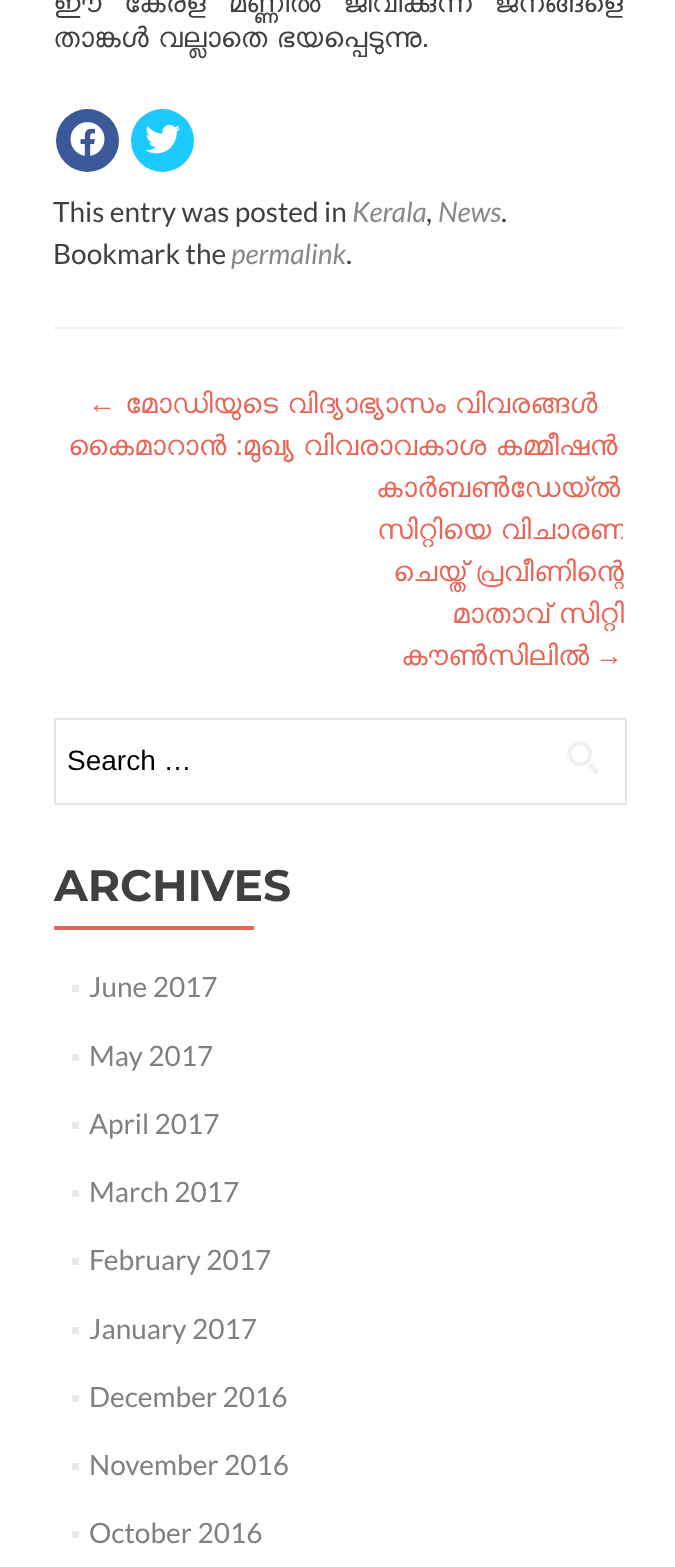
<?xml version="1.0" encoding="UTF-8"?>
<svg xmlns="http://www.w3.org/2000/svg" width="675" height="1567">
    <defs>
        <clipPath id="clip1"><rect x="53" y="382" width="570" height="294"/></clipPath>
    </defs>
    <rect width="100%" height="100%" fill="#FFFFFF"/>
    <rect x="53" y="327" width="570" height="2" fill="#F2F2F2"/>
    <text font-family="FreeSans" font-size="28" fill="#404040">
        <tspan x="53" y="12" word-spacing="11.5">ഈ കേരള മണ്ണില്‍ ജീവിക്കുന്ന ജനങ്ങളെ</tspan>
        <tspan x="53" y="47" word-spacing="-2">താങ്കള്‍ വല്ലാതെ ഭയപ്പെടുന്നു.</tspan>
    </text>
    <circle cx="87.5" cy="140.5" r="31.5" fill="#3B5998"/>
    <image x="70" y="122" width="35" height="34" href="img_01.png"/>
    <circle cx="162.5" cy="140.5" r="31.5" fill="#1DCAFF"/>
    <image x="145" y="124" width="36" height="30" href="img_02.png"/>
    <text x="53" y="222" font-family="Lato" font-size="28" fill="#404040">This entry was posted in</text>
    <text x="352" y="222" font-family="Lato" font-size="28" font-style="italic" fill="#888888">Kerala</text>
    <text x="426" y="222" font-family="Lato" font-size="28" fill="#404040">,</text>
    <text x="438" y="222" font-family="Lato" font-size="28" font-style="italic" fill="#888888">News</text>
    <text x="501" y="222" font-family="Lato" font-size="28" fill="#404040">.</text>
    <text x="53" y="264" font-family="Lato" font-size="28" fill="#404040">Bookmark the</text>
    <text x="231" y="264" font-family="Lato" font-size="28" font-style="italic" fill="#888888">permalink</text>
    <text x="346" y="264" font-family="Lato" font-size="28" fill="#404040">.</text>
    <text x="88" y="413" font-family="Liberation Sans" font-size="28" fill="#E96656">←</text>
    <text x="125" y="413" word-spacing="-2" font-family="FreeSans" font-size="28" fill="#E96656">മോഡിയുടെ വിദ്യാഭ്യാസം വിവരങ്ങള്‍</text>
    <text x="68" y="455" word-spacing="-2" font-family="FreeSans" font-size="28" fill="#E96656">കൈമാറാന്‍ :മുഖ്യ വിവരാവകാശ കമ്മീഷന്‍</text>
    <text x="376" y="497" font-family="FreeSans" font-size="28" fill="#E96656">കാര്‍ബണ്‍ഡേയ്ല്‍</text>
    <g clip-path="url(#clip1)">
        <text x="377" y="539" word-spacing="-2" font-family="FreeSans" font-size="28" fill="#E96656">സിറ്റിയെ വിചാരണ</text>
    </g>
    <text x="393" y="581" word-spacing="-2" font-family="FreeSans" font-size="28" fill="#E96656">ചെയ്ത് പ്രവീണിന്റെ</text>
    <text x="452" y="623" word-spacing="-2" font-family="FreeSans" font-size="28" fill="#E96656">മാതാവ് സിറ്റി</text>
    <text x="401" y="665" font-family="FreeSans" font-size="28" fill="#E96656">കൗണ്‍സിലില്‍</text>
    <text x="595" y="665" font-family="Liberation Sans" font-size="28" fill="#E96656">→</text>
    <rect x="55" y="719" width="571" height="85" fill="none" stroke="#E6E6E6" stroke-width="2"/>
    <text x="67" y="770" font-family="Liberation Sans" font-size="28" fill="#000000">Search …</text>
    <image x="567" y="740" width="32" height="34" href="img_03.png"/>
    <text x="54" y="901" font-family="Montserrat" font-size="44" font-weight="700" fill="#404040">ARCHIVES</text>
    <rect x="54" y="926" width="200" height="4" fill="#E96656"/>
    <rect x="72" y="985" width="7" height="7" fill="#E9E9E9"/>
    <text x="89" y="997" font-family="Lato" font-size="28" fill="#808080">June 2017</text>
    <rect x="72" y="1054" width="7" height="7" fill="#E9E9E9"/>
    <text x="89" y="1066" font-family="Lato" font-size="28" fill="#808080">May 2017</text>
    <rect x="72" y="1122" width="7" height="7" fill="#E9E9E9"/>
    <text x="89" y="1134" font-family="Lato" font-size="28" fill="#808080">April 2017</text>
    <rect x="72" y="1190" width="7" height="7" fill="#E9E9E9"/>
    <text x="89" y="1202" font-family="Lato" font-size="28" fill="#808080">March 2017</text>
    <rect x="72" y="1258" width="7" height="7" fill="#E9E9E9"/>
    <text x="89" y="1270" font-family="Lato" font-size="28" fill="#808080">February 2017</text>
    <rect x="72" y="1327" width="7" height="7" fill="#E9E9E9"/>
    <text x="89" y="1339" font-family="Lato" font-size="28" fill="#808080">January 2017</text>
    <rect x="72" y="1395" width="7" height="7" fill="#E9E9E9"/>
    <text x="89" y="1407" font-family="Lato" font-size="28" fill="#808080">December 2016</text>
    <rect x="72" y="1463" width="7" height="7" fill="#E9E9E9"/>
    <text x="89" y="1475" font-family="Lato" font-size="28" fill="#808080">November 2016</text>
    <rect x="72" y="1531" width="7" height="7" fill="#E9E9E9"/>
    <text x="89" y="1543" font-family="Lato" font-size="28" fill="#808080">October 2016</text>
</svg>
